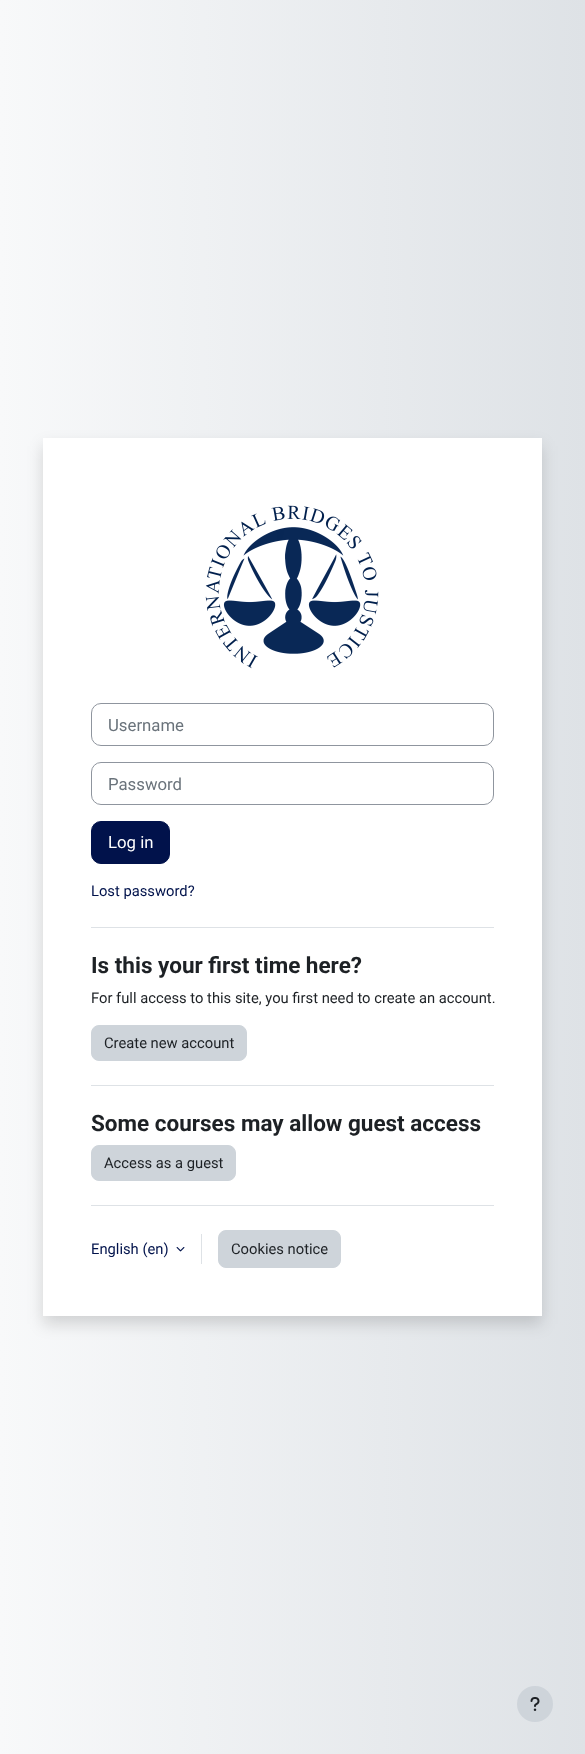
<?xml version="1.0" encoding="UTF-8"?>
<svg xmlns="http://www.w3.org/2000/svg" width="585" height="1754">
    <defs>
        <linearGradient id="g1" gradientUnits="userSpaceOnUse" x1="0" y1="877" x2="585" y2="877"><stop offset="0" stop-color="#F8F9FA"/><stop offset="1" stop-color="#DEE2E6"/></linearGradient>
        <filter id="blur1" x="-50%" y="-200%" width="200%" height="500%"><feGaussianBlur stdDeviation="8"/></filter>
    </defs>
    <rect width="100%" height="100%" fill="#FFFFFF"/>
    <rect x="0" y="0" width="585" height="1754" fill="url(#g1)"/>
    <rect x="43" y="446" width="499" height="878" fill="#000000" fill-opacity="0.15" filter="url(#blur1)"/>
    <rect x="43" y="438" width="499" height="878" fill="#FFFFFF"/>
    <image x="205" y="505" width="174" height="164" href="img_01.png"/>
    <rect x="91.5" y="703.5" width="402" height="42" rx="9.5" fill="none" stroke="#8F959E"/>
    <text x="108" y="731" font-family="Roboto" font-size="16.75" fill="#6A737B">Username</text>
    <rect x="91.5" y="762.5" width="402" height="42" rx="9.5" fill="none" stroke="#8F959E"/>
    <text x="108" y="790" font-family="Roboto" font-size="16.75" fill="#6A737B">Password</text>
    <rect x="91.5" y="821.5" width="78" height="42" rx="9.5" fill="#01124B" stroke="#01124B"/>
    <text x="108" y="848" font-family="Roboto" font-size="16.75" fill="#FFFFFF">Log in</text>
    <text x="91" y="896" font-family="Roboto" font-size="14.75" fill="#01124B">Lost password?</text>
    <rect x="91" y="927" width="403" height="1" fill="#DEE2E6"/>
    <text x="91" y="973" font-family="Roboto" font-size="22.5" font-weight="700" fill="#1D2125">Is this your first time here?</text>
    <text x="91" y="1003" font-family="Roboto" font-size="14.75" fill="#1D2125">For full access to this site, you first need to create an account.</text>
    <rect x="91.5" y="1025.5" width="155" height="35" rx="7.5" fill="#CED4DA" stroke="#CED4DA"/>
    <text x="104" y="1048" font-family="Roboto" font-size="14.75" fill="#1D2125">Create new account</text>
    <rect x="91" y="1085" width="403" height="1" fill="#DEE2E6"/>
    <text x="91" y="1131" font-family="Roboto" font-size="22.5" font-weight="700" fill="#1D2125">Some courses may allow guest access</text>
    <rect x="91.5" y="1145.5" width="144" height="35" rx="7.5" fill="#CED4DA" stroke="#CED4DA"/>
    <text x="104" y="1168" font-family="Roboto" font-size="14.75" fill="#1D2125">Access as a guest</text>
    <rect x="91" y="1205" width="403" height="1" fill="#DEE2E6"/>
    <text x="91" y="1254" font-family="Roboto" font-size="14.75" fill="#01124B">English (en)</text>
    <image x="176" y="1247" width="9" height="5" href="img_02.png"/>
    <rect x="201" y="1234" width="1" height="30" fill="#DEE2E6"/>
    <rect x="218.5" y="1230.5" width="122" height="37" rx="7.5" fill="#CED4DA" stroke="#CED4DA"/>
    <text x="231" y="1254" font-family="Roboto" font-size="14.75" fill="#1D2125">Cookies notice</text>
    <circle cx="535" cy="1704" r="18" fill="#CED4DA"/>
    <image x="530" y="1697" width="10" height="14" href="img_03.png"/>
</svg>
